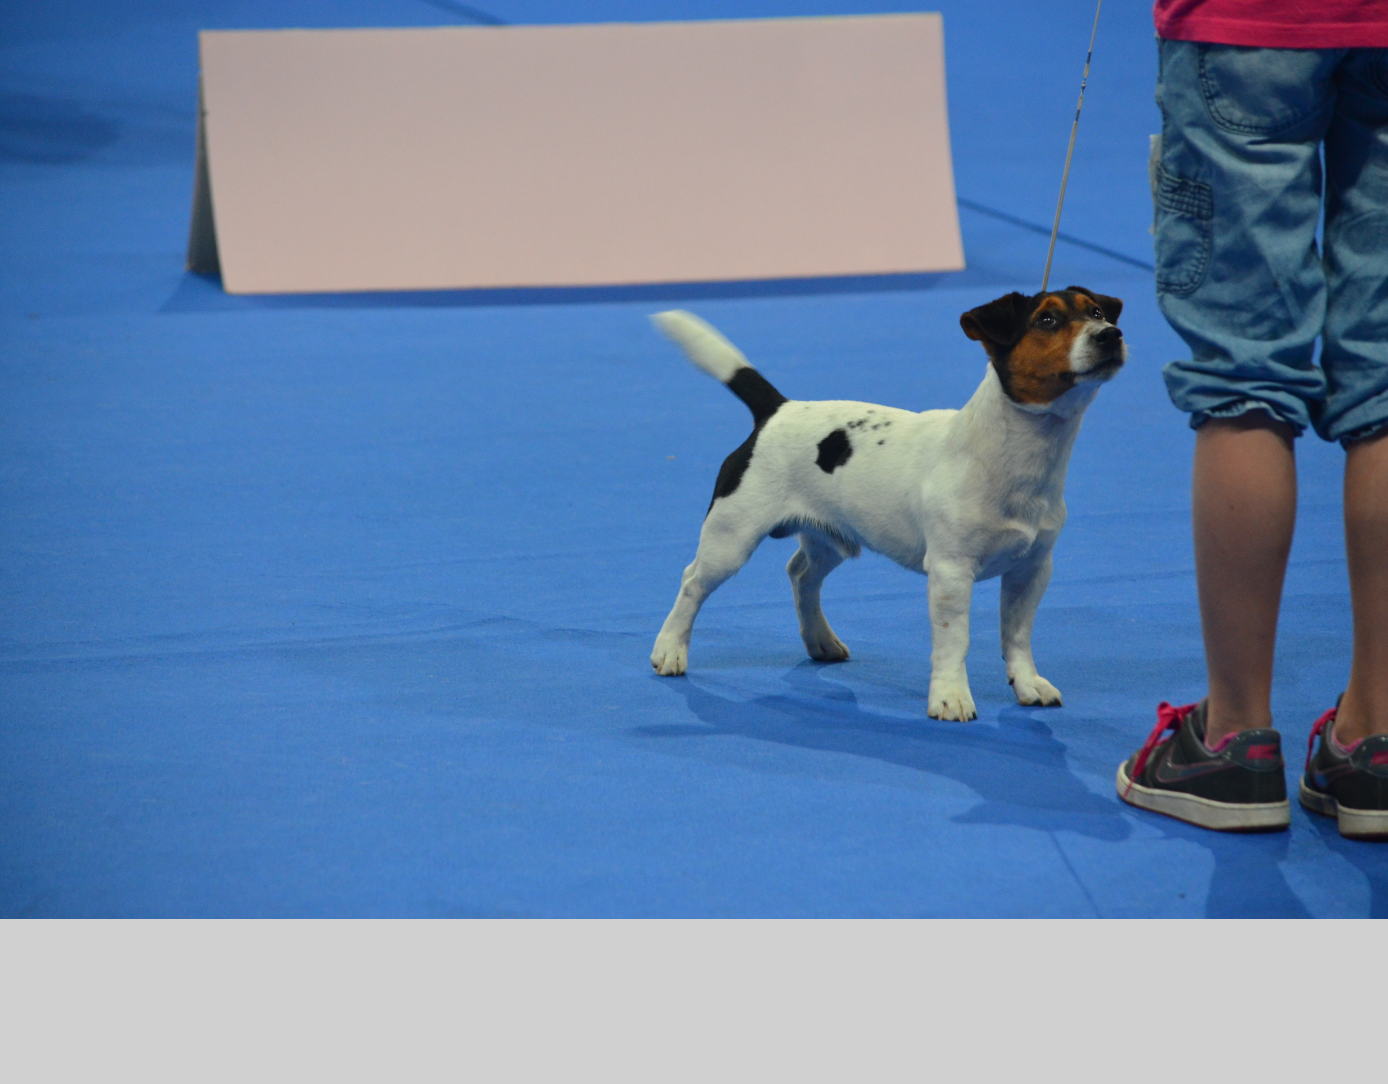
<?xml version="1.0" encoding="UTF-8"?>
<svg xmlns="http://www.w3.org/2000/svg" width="1388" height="1084">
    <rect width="100%" height="100%" fill="#D0D0D0"/>
    <image x="0" y="0" width="1388" height="919" href="img_01.png"/>
</svg>
